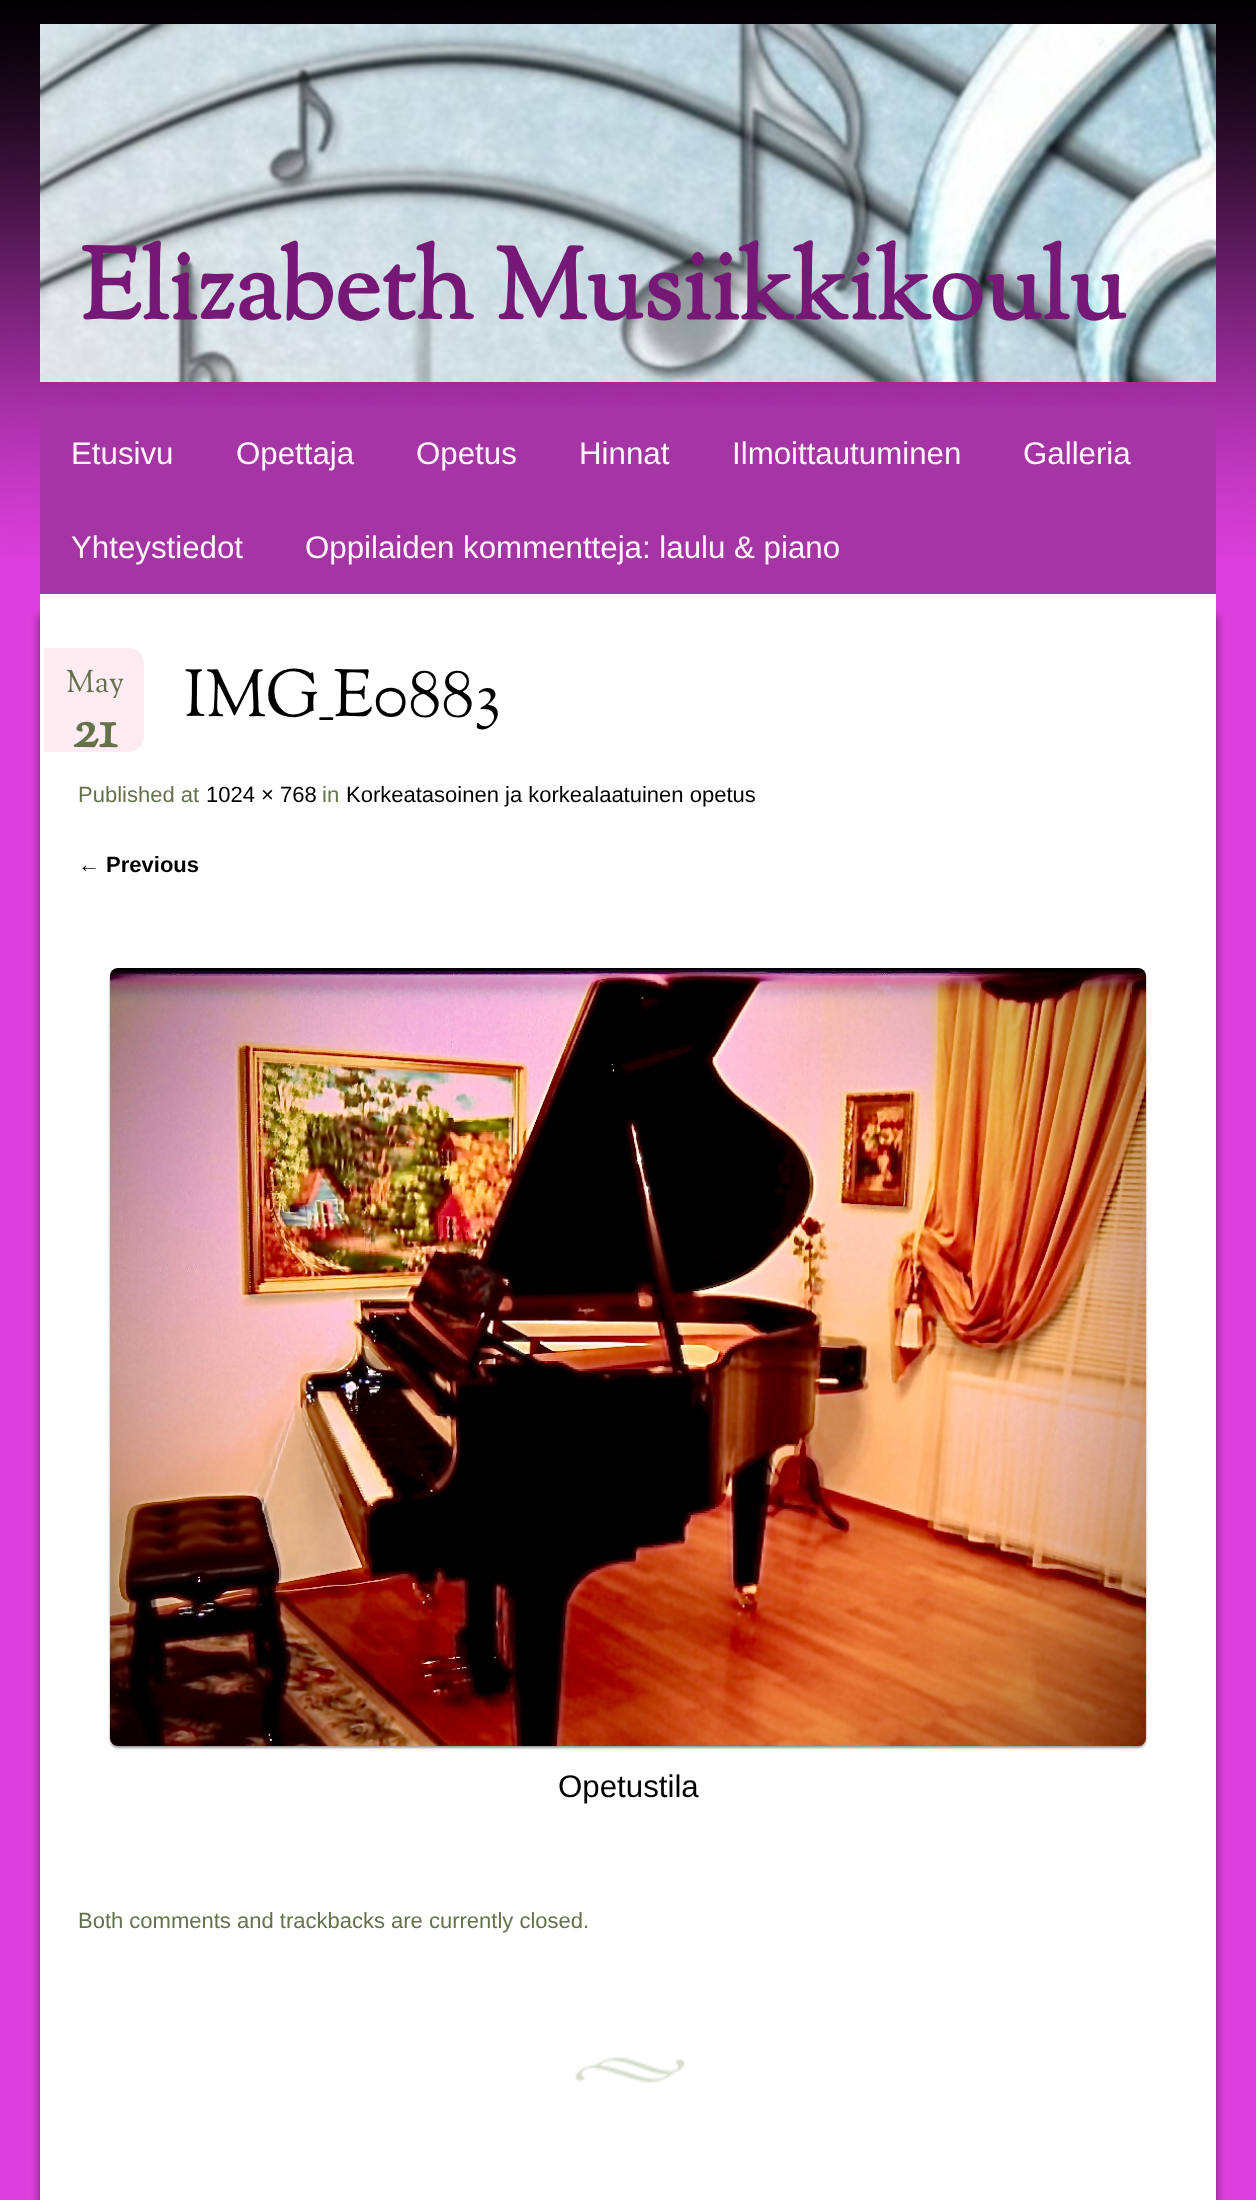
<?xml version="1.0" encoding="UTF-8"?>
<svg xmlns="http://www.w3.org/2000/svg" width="1256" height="2200">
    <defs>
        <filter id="blur1" x="-50%" y="-200%" width="200%" height="500%"><feGaussianBlur stdDeviation="5"/></filter>
        <filter id="blur2" x="-50%" y="-200%" width="200%" height="500%"><feGaussianBlur stdDeviation="1"/></filter>
    </defs>
    <rect width="100%" height="100%" fill="#DD3FDC"/>
    <image x="0" y="0" width="1256" height="558" href="img_01.png"/>
    <image x="40" y="24" width="1176" height="358" href="img_02.png"/>
    <text x="80" y="319" font-family="Sorts Mill Goudy" font-size="100" font-weight="700" fill="#761875">Elizabeth Musiikkikoulu</text>
    <path d="M 48 406 H 1208 C 1212.5 406 1216 409.5 1216 414 V 594 H 40 V 414 C 40 409.5 43.5 406 48 406 Z" fill="#A535A4"/>
    <text x="71" y="464" font-family="Liberation Sans" font-size="31.25" fill="#FFF4F9">Etusivu</text>
    <text x="236" y="464" font-family="Liberation Sans" font-size="31.25" fill="#FFF4F9">Opettaja</text>
    <text x="416" y="464" font-family="Liberation Sans" font-size="31.25" fill="#FFF4F9">Opetus</text>
    <text x="579" y="464" font-family="Liberation Sans" font-size="31.25" fill="#FFF4F9">Hinnat</text>
    <text x="732" y="464" font-family="Liberation Sans" font-size="31.25" fill="#FFF4F9">Ilmoittautuminen</text>
    <text x="1023" y="464" font-family="Liberation Sans" font-size="31.25" fill="#FFF4F9">Galleria</text>
    <text x="71" y="558" font-family="Liberation Sans" font-size="31.25" fill="#FFF4F9">Yhteystiedot</text>
    <text x="305" y="558" font-family="Liberation Sans" font-size="31.25" fill="#FFF4F9">Oppilaiden kommentteja: laulu &amp; piano</text>
    <rect x="40" y="614" width="1156" height="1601" fill="#000000" fill-opacity="0.5" filter="url(#blur1)"/>
    <rect x="60" y="614" width="1156" height="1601" fill="#000000" fill-opacity="0.5" filter="url(#blur1)"/>
    <rect x="40" y="594" width="1176" height="1606" fill="#FFFFFF"/>
    <image x="575" y="2057" width="110" height="26" href="img_03.png"/>
    <path d="M 42 646 H 128 C 138 646 146 654 146 664 V 736 C 146 746 138 754 128 754 H 42 Z" fill="#FFEBF2" stroke="#FFFFFF" stroke-width="4"/>
    <text x="66" y="692" font-family="Sorts Mill Goudy" font-size="31.25" fill="#63724B">May</text>
    <text x="72" y="747" font-family="Sorts Mill Goudy" font-size="56" font-weight="700" fill="#63724B">21</text>
    <text x="184" y="716" font-family="Sorts Mill Goudy" font-size="66" fill="#000000">IMG_E0883</text>
    <text x="78" y="802" font-family="Liberation Sans" font-size="22" fill="#63724B">Published at</text>
    <text x="206" y="802" font-family="Liberation Sans" font-size="22" fill="#000000">1024 × 768</text>
    <text x="322" y="802" font-family="Liberation Sans" font-size="22" fill="#63724B">in</text>
    <text x="346" y="802" font-family="Liberation Sans" font-size="22" fill="#000000">Korkeatasoinen ja korkealaatuinen opetus</text>
    <text x="78" y="872" font-family="Liberation Sans" font-size="22" font-weight="700" fill="#000000">← Previous</text>
    <rect x="110" y="970" width="1036" height="778" rx="8" fill="#000000" fill-opacity="0.4" filter="url(#blur2)"/>
    <image x="110" y="968" width="1036" height="778" href="img_04.png"/>
    <text x="558" y="1797" font-family="Liberation Sans" font-size="31.25" fill="#000000">Opetustila</text>
    <text x="78" y="1928" font-family="Liberation Sans" font-size="22" fill="#63724B">Both comments and trackbacks are currently closed.</text>
</svg>
